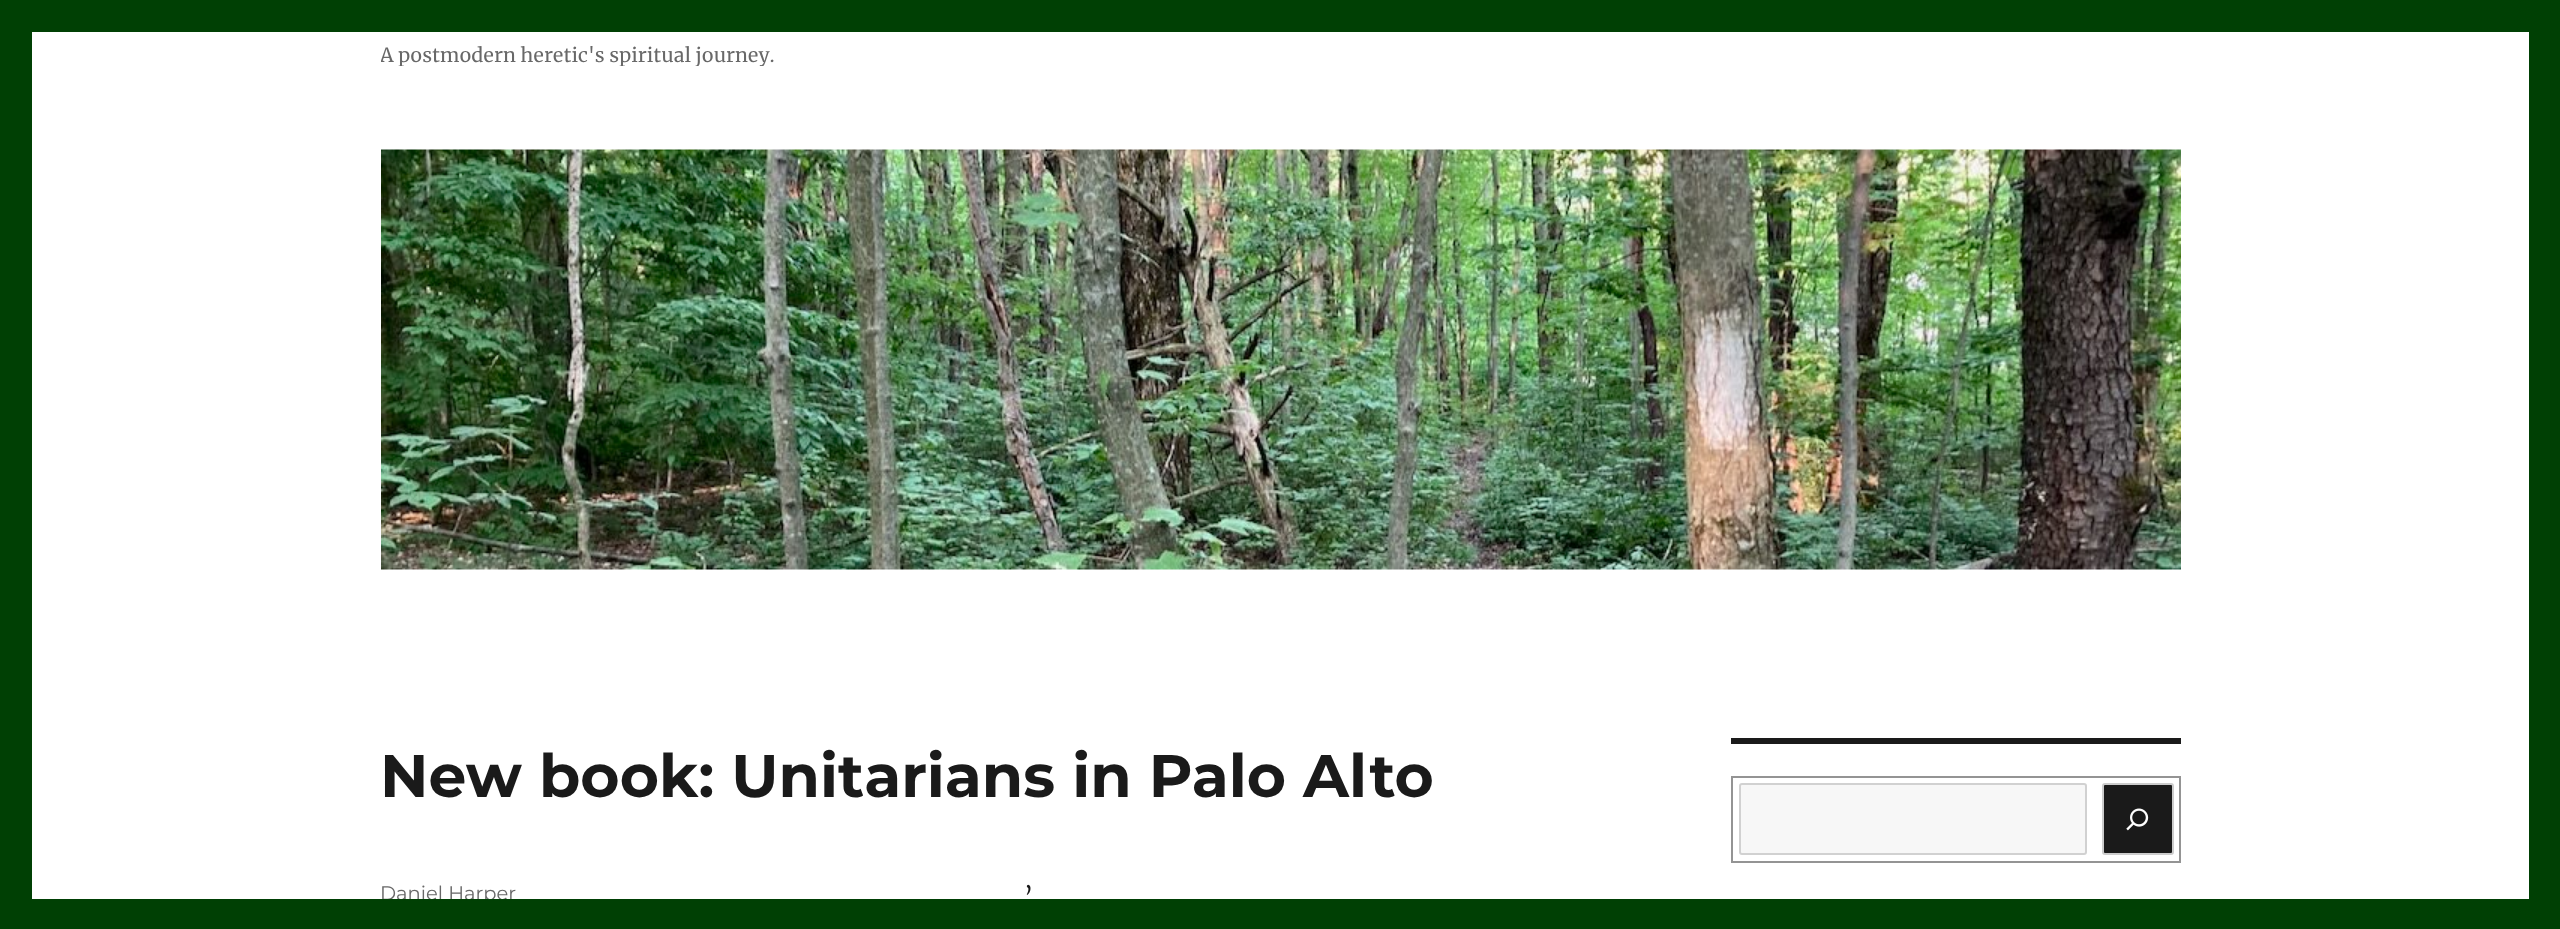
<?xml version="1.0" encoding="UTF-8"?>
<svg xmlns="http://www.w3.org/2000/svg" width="2560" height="929">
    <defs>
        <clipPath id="clip1"><rect x="381" y="0" width="749" height="66"/></clipPath>
    </defs>
    <rect width="100%" height="100%" fill="#004004"/>
    <rect x="32" y="32" width="2497" height="867" fill="#FFFFFF"/>
    <g clip-path="url(#clip1)">
        <text x="380" y="62" font-family="Merriweather" font-size="19.5" fill="#686868">A postmodern heretic's spiritual journey.</text>
    </g>
    <image x="381" y="149" width="1800" height="421" href="img_01.png"/>
    <text x="380" y="797" font-family="'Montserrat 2'" font-size="60" font-weight="100" fill="#1A1A1A">New book: Unitarians in Palo Alto</text>
    <text x="380" y="900" font-family="Montserrat" font-size="19.5" font-weight="100" fill="#686868">Daniel Harper</text>
    <text x="1024" y="905" font-family="Merriweather" font-size="24" fill="#1A1A1A">’</text>
    <rect x="1731" y="738" width="450" height="6" fill="#1A1A1A"/>
    <rect x="1732" y="777" width="448" height="85" fill="none" stroke="#949494" stroke-width="2"/>
    <rect x="1740" y="784" width="346" height="70" rx="2" fill="#F7F7F7" stroke="#D1D1D1" stroke-width="2"/>
    <rect x="2103" y="784" width="70" height="70" rx="2" fill="#1A1A1A" stroke="#CCCCCC" stroke-width="2"/>
    <image x="2126" y="808" width="23" height="23" href="img_02.png"/>
    <rect x="382" y="899" width="130" height="5" fill="#004004"/>
</svg>
